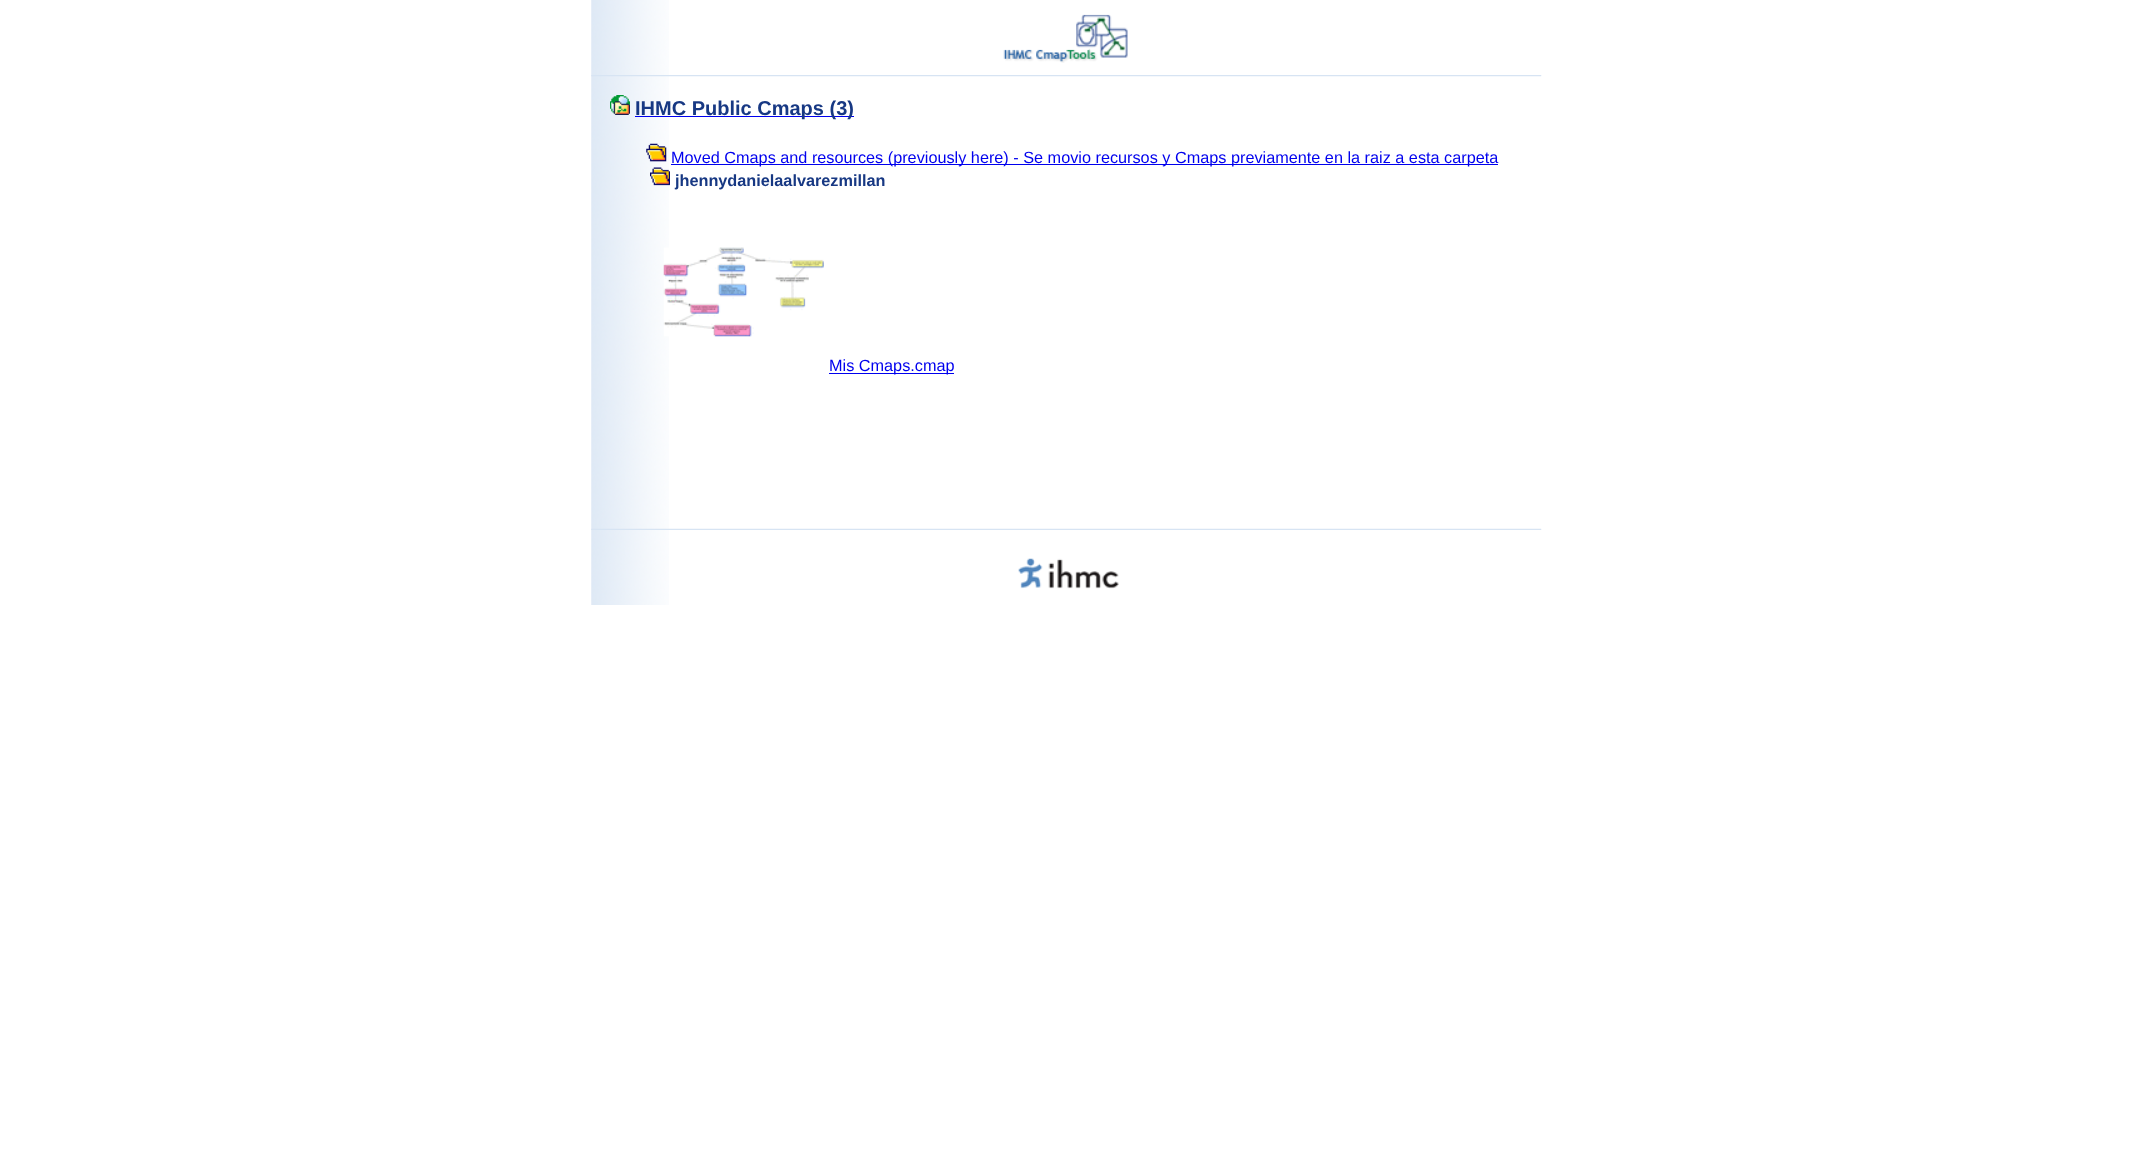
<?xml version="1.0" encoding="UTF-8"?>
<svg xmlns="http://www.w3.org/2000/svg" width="2132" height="1153">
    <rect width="100%" height="100%" fill="#FFFFFF"/>
    <image x="591" y="0" width="78" height="605" href="img_01.png"/>
    <image x="1003" y="14" width="125" height="49" href="img_02.png"/>
    <image x="591" y="75" width="951" height="2" href="img_03.png"/>
    <image x="610" y="95" width="20" height="20" href="img_04.png"/>
    <rect x="635" y="116" width="219" height="1" fill="#0000EE"/>
    <text x="635" y="115" font-family="Liberation Sans" font-size="20" font-weight="700" fill="#173883">IHMC Public Cmaps (3)</text>
    <image x="646" y="143" width="21" height="19" href="img_05.png"/>
    <rect x="671" y="164" width="827" height="1" fill="#0000EE"/>
    <text x="671" y="163" font-family="Liberation Sans" font-size="16.25" fill="#0000EE">Moved Cmaps and resources (previously here) - Se movio recursos y Cmaps previamente en la raiz a esta carpeta</text>
    <image x="650" y="167" width="20" height="19" href="img_06.png"/>
    <text x="675" y="186" font-family="Liberation Sans" font-size="16.25" font-weight="700" fill="#173883">jhennydanielaalvarezmillan</text>
    <image x="663" y="247" width="161" height="90" href="img_07.png"/>
    <rect x="829" y="373" width="125" height="1" fill="#0000EE"/>
    <text x="829" y="371" font-family="Liberation Sans" font-size="16.25" fill="#0000EE">Mis Cmaps.cmap</text>
    <image x="591" y="528" width="951" height="2" href="img_08.png"/>
    <image x="1018" y="558" width="101" height="31" href="img_09.png"/>
</svg>
